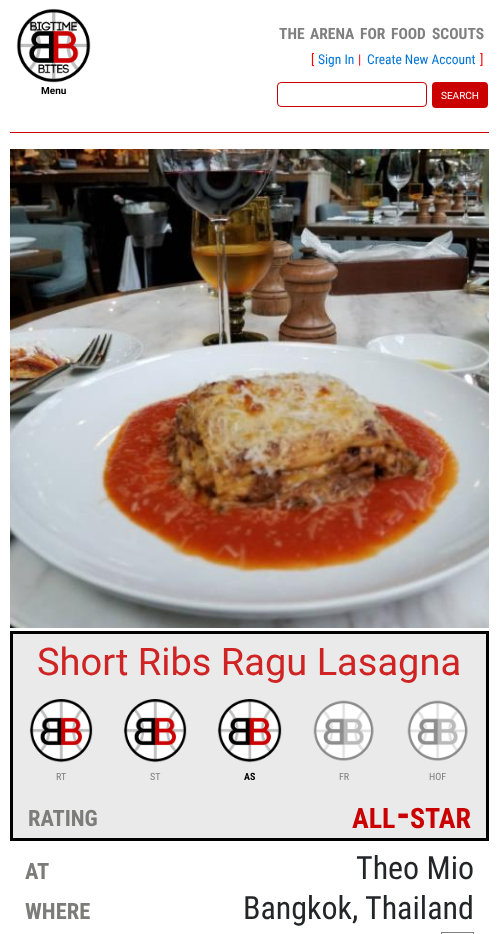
<?xml version="1.0" encoding="UTF-8"?>
<svg xmlns="http://www.w3.org/2000/svg" width="499" height="934">
    <rect width="100%" height="100%" fill="#FFFFFF"/>
    <image x="16" y="8" width="75" height="75" href="img_01.png"/>
    <text x="41" y="94" font-family="Roboto" font-size="10" font-weight="700" fill="#000000">Menu</text>
    <text x="279" y="39" font-family="Roboto Condensed" font-size="15.5" font-weight="700" fill="#808080">THE</text>
    <text x="310" y="39" font-family="Roboto Condensed" font-size="15.5" font-weight="700" fill="#808080">ARENA</text>
    <text x="360" y="39" font-family="Roboto Condensed" font-size="15.5" font-weight="700" fill="#808080">FOR</text>
    <text x="391" y="39" font-family="Roboto Condensed" font-size="15.5" font-weight="700" fill="#808080">FOOD</text>
    <text x="432" y="39" font-family="Roboto Condensed" font-size="15.5" font-weight="700" fill="#808080">SCOUTS</text>
    <text x="311" y="64" font-family="Roboto Condensed" font-size="13.5" fill="#FF0000">[</text>
    <text x="318" y="64" font-family="Roboto Condensed" font-size="13.5" fill="#0275D8">Sign In</text>
    <text x="358" y="64" font-family="Roboto Condensed" font-size="13.5" fill="#FF0000">|</text>
    <text x="367" y="64" font-family="Roboto Condensed" font-size="13.5" fill="#0275D8">Create New Account</text>
    <text x="480" y="64" font-family="Roboto Condensed" font-size="13.5" fill="#FF0000">]</text>
    <rect x="277.5" y="82.5" width="149" height="24" rx="3.5" fill="none" stroke="#CB0000"/>
    <rect x="432" y="82" width="56" height="26" rx="4" fill="#CB0000"/>
    <text x="441" y="99" font-family="Roboto" font-size="10" fill="#FFFFFF">SEARCH</text>
    <rect x="10" y="132" width="479" height="1" fill="#CB0000"/>
    <image x="10" y="149" width="479" height="479" href="img_02.png"/>
    <rect x="11.5" y="632.5" width="476" height="207" fill="#EAEAEA" stroke="#000000" stroke-width="3"/>
    <text x="37" y="675" font-family="Roboto" font-size="38" fill="#D02323">Short Ribs Ragu Lasagna</text>
    <image x="29" y="699" width="64" height="64" href="img_03.png"/>
    <text x="56" y="780" font-family="Roboto Condensed" font-size="10" fill="#808080">RT</text>
    <image x="123" y="699" width="64" height="64" href="img_03.png"/>
    <text x="150" y="780" font-family="Roboto Condensed" font-size="10" fill="#808080">ST</text>
    <image x="217" y="699" width="65" height="64" href="img_04.png"/>
    <text x="244" y="780" font-family="Roboto Condensed" font-size="10" font-weight="700" fill="#000000">AS</text>
    <image x="313" y="700" width="61" height="61" href="img_05.png"/>
    <text x="339" y="780" font-family="Roboto Condensed" font-size="10" fill="#808080">FR</text>
    <image x="407" y="700" width="61" height="61" href="img_05.png"/>
    <text x="429" y="780" font-family="Roboto Condensed" font-size="10" fill="#808080">HOF</text>
    <text x="28" y="826" font-family="Roboto Condensed" font-size="22.5" font-weight="700" fill="#7C7C79">RATING</text>
    <text x="352" y="828" font-family="Roboto Condensed" font-size="28" font-weight="700" fill="#CB0000">ALL</text>
    <text x="396" y="828" font-family="Roboto Condensed" font-size="40" font-weight="700" fill="#CB0000">-</text>
    <text x="410" y="828" font-family="Roboto Condensed" font-size="28" font-weight="700" fill="#CB0000">STAR</text>
    <text x="25" y="879" font-family="Roboto Condensed" font-size="22.5" font-weight="700" fill="#7C7C79">AT</text>
    <text x="356" y="879" font-family="Roboto Condensed" font-size="32" fill="#232528">Theo Mio</text>
    <text x="25" y="919" font-family="Roboto Condensed" font-size="22.5" font-weight="700" fill="#7C7C79">WHERE</text>
    <text x="243" y="919" font-family="Roboto Condensed" font-size="32" fill="#232528">Bangkok, Thailand</text>
    <rect x="441.5" y="932.5" width="32" height="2" fill="none" stroke="#808080"/>
</svg>
